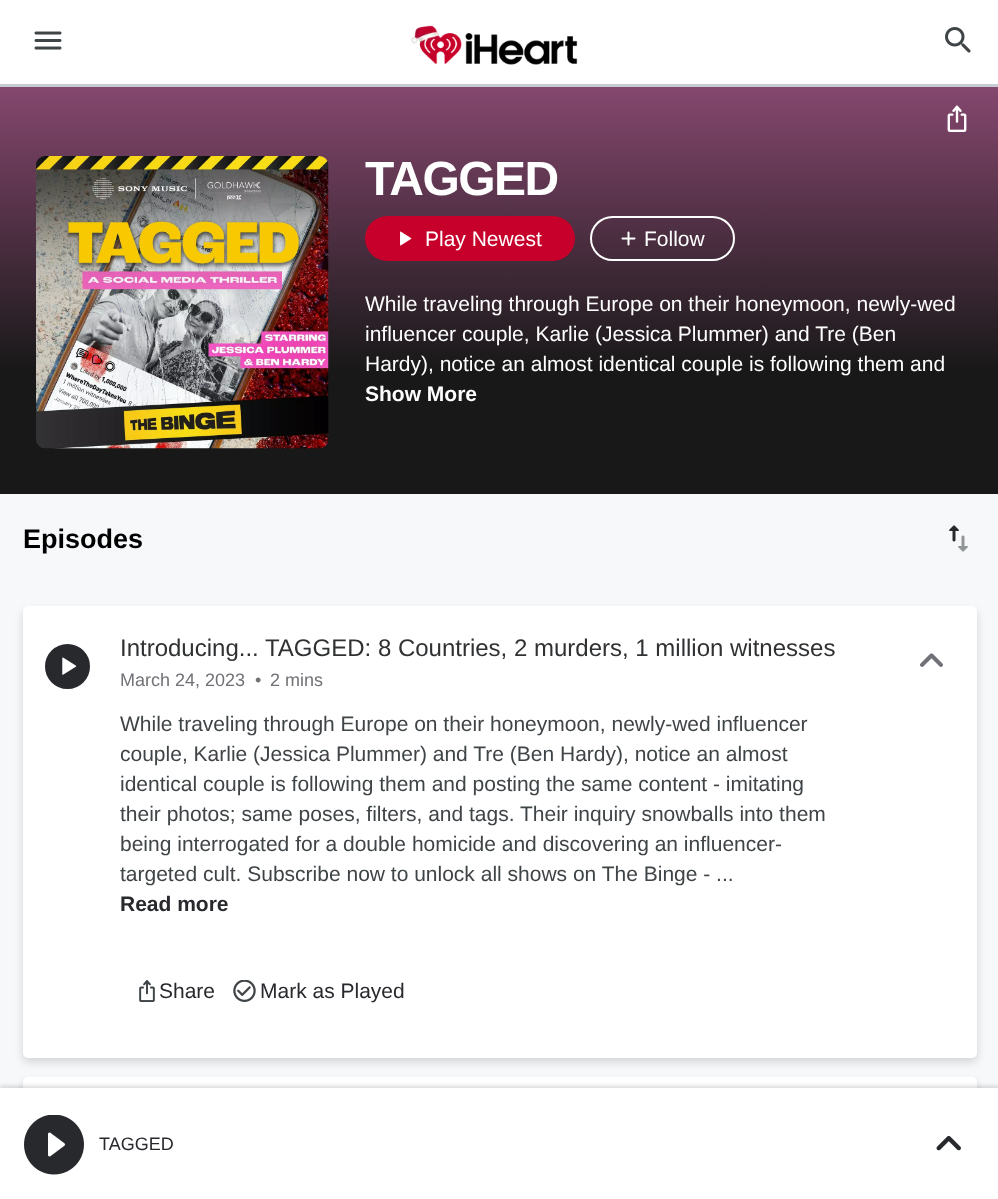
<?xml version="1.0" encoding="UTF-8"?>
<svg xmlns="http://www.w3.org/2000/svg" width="998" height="1199">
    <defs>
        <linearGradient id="g1" gradientUnits="userSpaceOnUse" x1="500" y1="87" x2="500" y2="494"><stop offset="0" stop-color="#85476E"/><stop offset="0.7" stop-color="#181818"/></linearGradient>
        <filter id="blur1" x="-50%" y="-200%" width="200%" height="500%"><feGaussianBlur stdDeviation="4"/></filter>
        <filter id="blur2" x="-50%" y="-200%" width="200%" height="500%"><feGaussianBlur stdDeviation="2"/></filter>
    </defs>
    <rect width="100%" height="100%" fill="#FFFFFF"/>
    <rect x="0" y="84" width="998" height="3" fill="#C5CDD2"/>
    <image x="34" y="31" width="28" height="19" href="img_01.png"/>
    <image x="411" y="25" width="167" height="40" href="img_02.png"/>
    <image x="945" y="27" width="26" height="26" href="img_03.png"/>
    <rect x="0" y="87" width="998" height="407" fill="url(#g1)"/>
    <image x="36" y="156" width="293" height="293" href="img_04.png"/>
    <text x="365" y="195" font-family="Liberation Sans" font-size="48" font-weight="700" letter-spacing="-1.5" fill="#FFFFFF">TAGGED</text>
    <rect x="365" y="216" width="210" height="45" rx="22.5" fill="#C6002B"/>
    <image x="400" y="231" width="12" height="15" href="img_05.png"/>
    <text x="425" y="246" font-family="Liberation Sans" font-size="21" fill="#FFFFFF">Play Newest</text>
    <image x="947" y="105" width="20" height="27" href="img_06.png"/>
    <rect x="591" y="217" width="143" height="43" rx="21.5" fill="none" stroke="#FFFFFF" stroke-width="2"/>
    <image x="621" y="231" width="15" height="15" href="img_07.png"/>
    <text x="644" y="246" font-family="Liberation Sans" font-size="21" fill="#FFFFFF">Follow</text>
    <text font-family="Liberation Sans" font-size="21" fill="#FFFFFF">
        <tspan x="365" y="311">While traveling through Europe on their honeymoon, newly-wed</tspan>
        <tspan x="365" y="341">influencer couple, Karlie (Jessica Plummer) and Tre (Ben</tspan>
        <tspan x="365" y="371">Hardy), notice an almost identical couple is following them and</tspan>
    </text>
    <text x="365" y="401" font-family="Liberation Sans" font-size="21" font-weight="700" fill="#FFFFFF">Show More</text>
    <rect x="0" y="494" width="998" height="594" fill="#F6F8F9"/>
    <text x="23" y="548" font-family="Liberation Sans" font-size="27" font-weight="700" fill="#000000">Episodes</text>
    <image x="949" y="525" width="19" height="27" href="img_08.png"/>
    <rect x="23" y="611" width="954" height="451" rx="5" fill="#000000" fill-opacity="0.15" filter="url(#blur1)"/>
    <rect x="23" y="606" width="954" height="452" rx="5" fill="#FFFFFF"/>
    <circle cx="67.5" cy="666.5" r="21.5" fill="#27292D" stroke="#27292D" stroke-width="2"/>
    <image x="62" y="657" width="15" height="18" href="img_09.png"/>
    <text x="120" y="656" font-family="Liberation Sans" font-size="24" fill="#2F3133">Introducing... TAGGED: 8 Countries, 2 murders, 1 million witnesses</text>
    <text x="120" y="686" font-family="Liberation Sans" font-size="18" fill="#717277">March 24, 2023</text>
    <text x="255" y="686" font-family="Liberation Sans" font-size="18" fill="#717277">•</text>
    <text x="270" y="686" font-family="Liberation Sans" font-size="18" fill="#717277">2 mins</text>
    <image x="920" y="653" width="23" height="14" href="img_10.png"/>
    <text font-family="Liberation Sans" font-size="21" fill="#3F4447">
        <tspan x="120" y="731">While traveling through Europe on their honeymoon, newly-wed influencer</tspan>
        <tspan x="120" y="761">couple, Karlie (Jessica Plummer) and Tre (Ben Hardy), notice an almost</tspan>
        <tspan x="120" y="791">identical couple is following them and posting the same content - imitating</tspan>
        <tspan x="120" y="821">their photos; same poses, filters, and tags.</tspan>
    </text>
    <text x="520" y="821" font-family="Liberation Sans" font-size="21" fill="#3F4447">Their inquiry snowballs into them</text>
    <text font-family="Liberation Sans" font-size="21" fill="#3F4447">
        <tspan x="120" y="851">being interrogated for a double homicide and discovering an influencer-</tspan>
        <tspan x="120" y="881">targeted cult. Subscribe now to unlock all shows on The Binge - ...</tspan>
    </text>
    <text x="120" y="911" font-family="Liberation Sans" font-size="21" font-weight="700" fill="#27292D">Read more</text>
    <image x="139" y="980" width="16" height="22" href="img_11.png"/>
    <text x="159" y="998" font-family="Liberation Sans" font-size="21" fill="#27292D">Share</text>
    <image x="233" y="980" width="23" height="22" href="img_12.png"/>
    <text x="260" y="998" font-family="Liberation Sans" font-size="21" fill="#27292D">Mark as Played</text>
    <rect x="23" y="1082" width="954" height="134" rx="5" fill="#000000" fill-opacity="0.15" filter="url(#blur1)"/>
    <rect x="23" y="1077" width="954" height="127" rx="5" fill="#FFFFFF"/>
    <rect x="0" y="1086" width="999" height="113" fill="#000000" fill-opacity="0.15" filter="url(#blur2)"/>
    <rect x="0" y="1088" width="998" height="111" fill="#FFFFFF"/>
    <image x="24" y="1115" width="60" height="60" href="img_13.png"/>
    <text x="99" y="1150" font-family="Liberation Sans" font-size="18" fill="#27292D">TAGGED</text>
    <image x="936" y="1135" width="25" height="16" href="img_14.png"/>
</svg>
